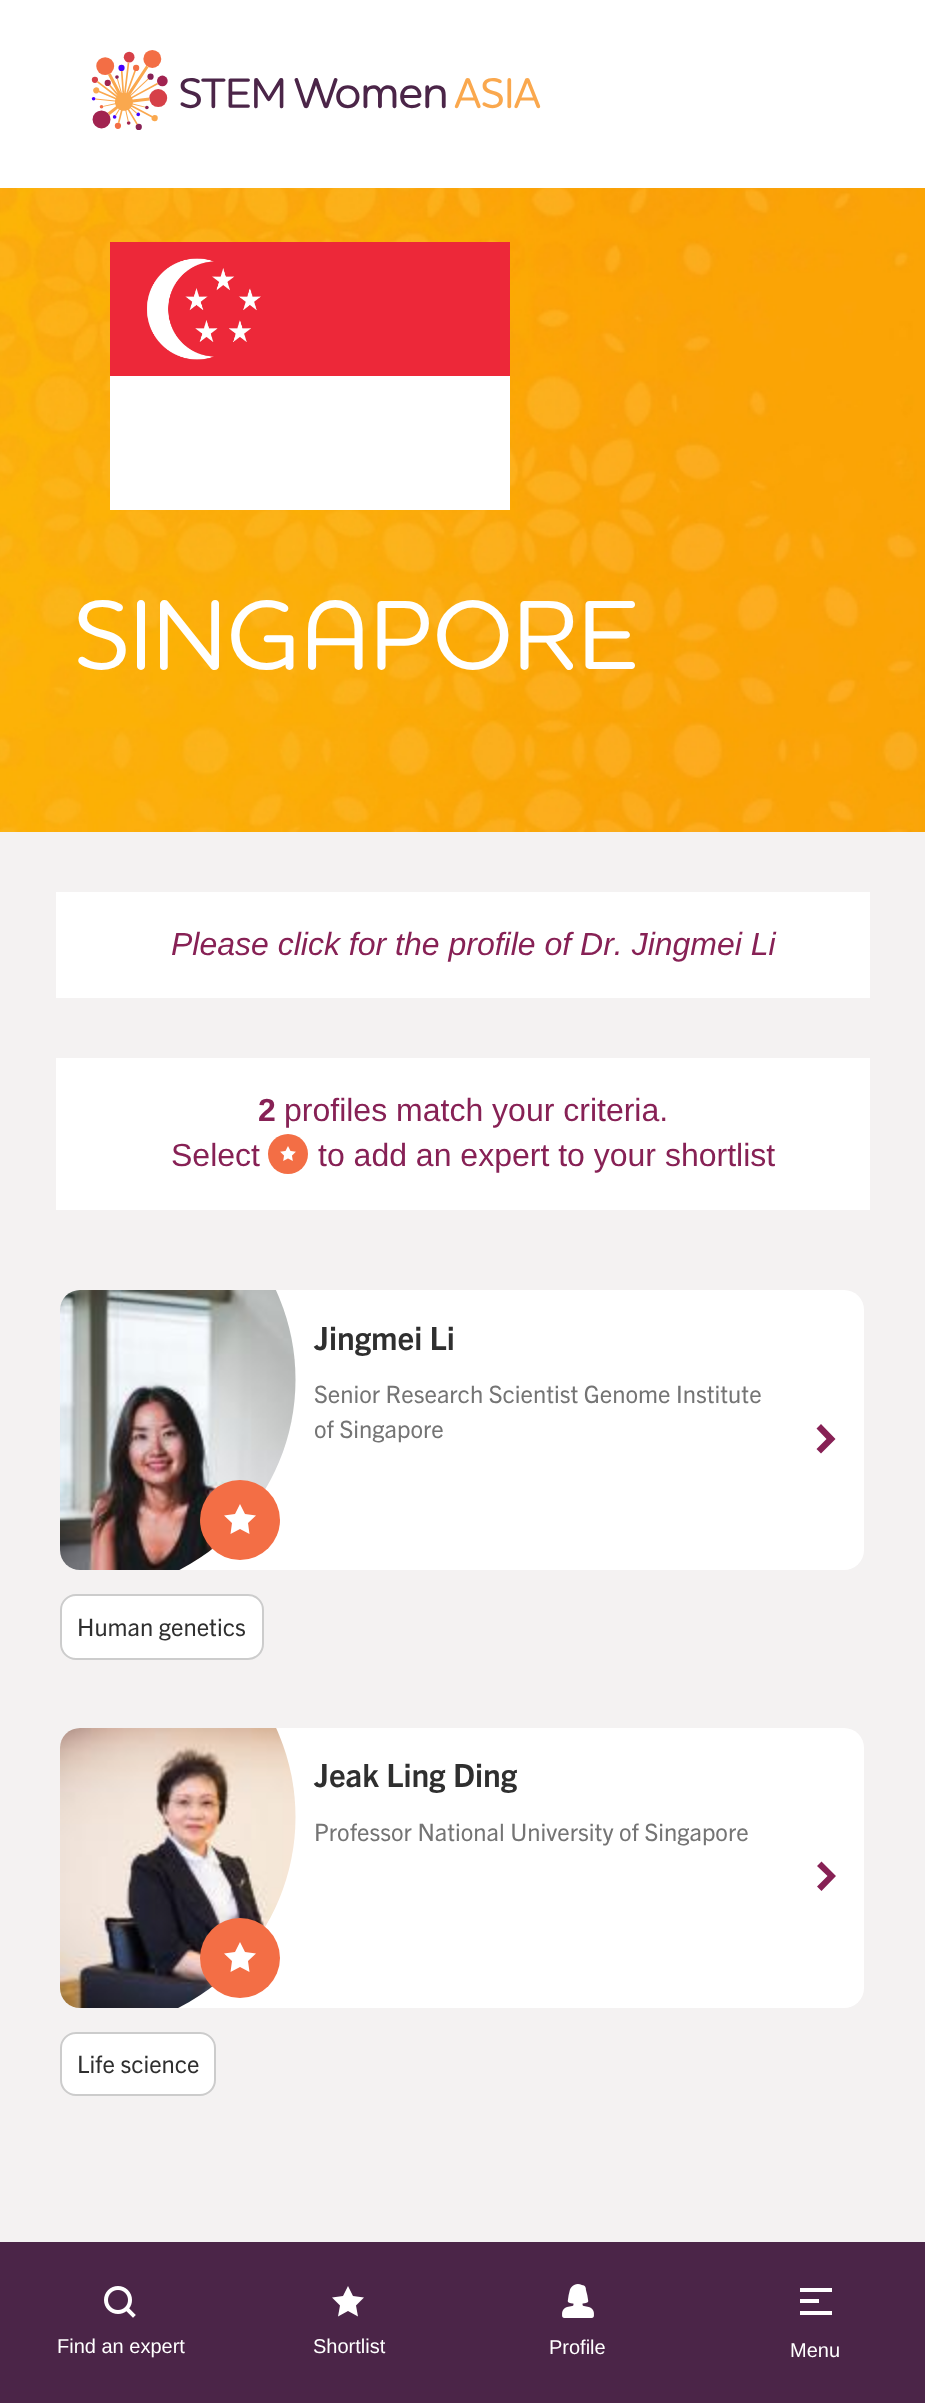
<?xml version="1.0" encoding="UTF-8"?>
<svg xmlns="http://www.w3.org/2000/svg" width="925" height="2403">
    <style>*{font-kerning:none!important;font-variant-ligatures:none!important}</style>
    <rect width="100%" height="100%" fill="#F4F2F2"/>
    <image x="0" y="188" width="925" height="644" href="img_01.png"/>
    <image x="110" y="242" width="400" height="268" href="img_02.png"/>
    <text x="74" y="669" font-family="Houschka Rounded" font-size="100" font-weight="500" fill="#FFFFFF">SINGAPORE</text>
    <rect x="56" y="892" width="814" height="106" fill="#FFFFFF"/>
    <text x="171" y="955" font-family="Liberation Sans" font-size="32" font-style="italic" fill="#872155">Please click for the profile of Dr. Jingmei Li</text>
    <rect x="56" y="1058" width="814" height="152" fill="#FFFFFF"/>
    <text x="258" y="1121" font-family="Liberation Sans" font-size="32" font-weight="700" fill="#872155">2</text>
    <text x="284" y="1121" font-family="Liberation Sans" font-size="32" fill="#872155">profiles match your criteria.</text>
    <text x="171" y="1166" font-family="Liberation Sans" font-size="32" fill="#872155">Select</text>
    <circle cx="288" cy="1154" r="20" fill="#F36E45"/>
    <image x="280" y="1146" width="16" height="15" href="img_03.png"/>
    <text x="318" y="1166" font-family="Liberation Sans" font-size="32" fill="#872155">to add an expert to your shortlist</text>
    <rect x="60" y="1290" width="804" height="280" rx="20" fill="#FFFFFF"/>
    <image x="60" y="1290" width="236" height="280" href="img_04.png"/>
    <text x="314" y="1350" font-family="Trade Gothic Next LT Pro" font-size="32" font-weight="700" fill="#2F2F2F">Jingmei Li</text>
    <text font-family="Trade Gothic Next LT Pro" font-size="24" fill="#747474">
        <tspan x="314" y="1403">Senior Research Scientist Genome Institute</tspan>
        <tspan x="314" y="1438">of Singapore</tspan>
    </text>
    <circle cx="240" cy="1520" r="40" fill="#F36E45"/>
    <path d="M 240 1504 L 245 1514 L 256 1515.5 L 248 1523 L 249.5 1534 L 240 1529 L 230.5 1534 L 232 1523 L 224 1515.5 L 235 1514 Z" fill="#FFFFFF"/>
    <path d="M 835.5 1439 L 821 1453.5 L 816.5 1449 L 826.5 1439 L 816.5 1428.5 L 821 1424 Z" fill="#872155"/>
    <rect x="61" y="1595" width="202" height="64" rx="15" fill="#FFFFFF" stroke="#CCCCCC" stroke-width="2"/>
    <text x="77" y="1636" font-family="Trade Gothic Next LT Pro" font-size="24" fill="#2F2F2F">Human genetics</text>
    <rect x="60" y="1728" width="804" height="280" rx="20" fill="#FFFFFF"/>
    <image x="60" y="1728" width="236" height="280" href="img_05.png"/>
    <text x="314" y="1787" font-family="Trade Gothic Next LT Pro" font-size="32" font-weight="700" fill="#2F2F2F">Jeak Ling Ding</text>
    <text x="314" y="1841" font-family="Trade Gothic Next LT Pro" font-size="24" fill="#747474">Professor National University of Singapore</text>
    <circle cx="240" cy="1958" r="40" fill="#F36E45"/>
    <path d="M 240 1942 L 245 1952 L 256 1953.5 L 248 1961 L 249.5 1972 L 240 1967 L 230.5 1972 L 232 1961 L 224 1953.5 L 235 1952 Z" fill="#FFFFFF"/>
    <path d="M 836 1876 L 821.5 1891 L 817 1886.5 L 827.5 1876 L 817 1866 L 821.5 1861.5 Z" fill="#872155"/>
    <rect x="61" y="2033" width="154" height="62" rx="15" fill="#FFFFFF" stroke="#CCCCCC" stroke-width="2"/>
    <text x="77" y="2073" font-family="Trade Gothic Next LT Pro" font-size="24" fill="#2F2F2F">Life science</text>
    <rect x="0" y="0" width="925" height="188" fill="#FFFFFF"/>
    <image x="91" y="50" width="450" height="80" href="img_06.png"/>
    <rect x="0" y="2242" width="925" height="161" fill="#4B2548"/>
    <image x="104" y="2286" width="32" height="32" href="img_07.png"/>
    <text x="57" y="2353" font-family="Liberation Sans" font-size="20" fill="#FFFFFF">Find an expert</text>
    <path d="M 348 2286 L 353 2296 L 364 2297.5 L 356 2305.5 L 358 2316.5 L 348 2311 L 338 2316.5 L 340 2305.5 L 332 2297.5 L 343 2296 Z" fill="#FFFFFF"/>
    <text x="313" y="2353" font-family="Liberation Sans" font-size="20" fill="#FFFFFF">Shortlist</text>
    <image x="562" y="2284" width="32" height="34" href="img_08.png"/>
    <text x="549" y="2354" font-family="Liberation Sans" font-size="20" fill="#FFFFFF">Profile</text>
    <rect x="800" y="2288" width="32" height="4" fill="#FFFFFF"/>
    <rect x="800" y="2299" width="19" height="4" fill="#FFFFFF"/>
    <rect x="800" y="2311" width="32" height="4" fill="#FFFFFF"/>
    <text x="790" y="2357" font-family="Liberation Sans" font-size="20" fill="#FFFFFF">Menu</text>
</svg>
